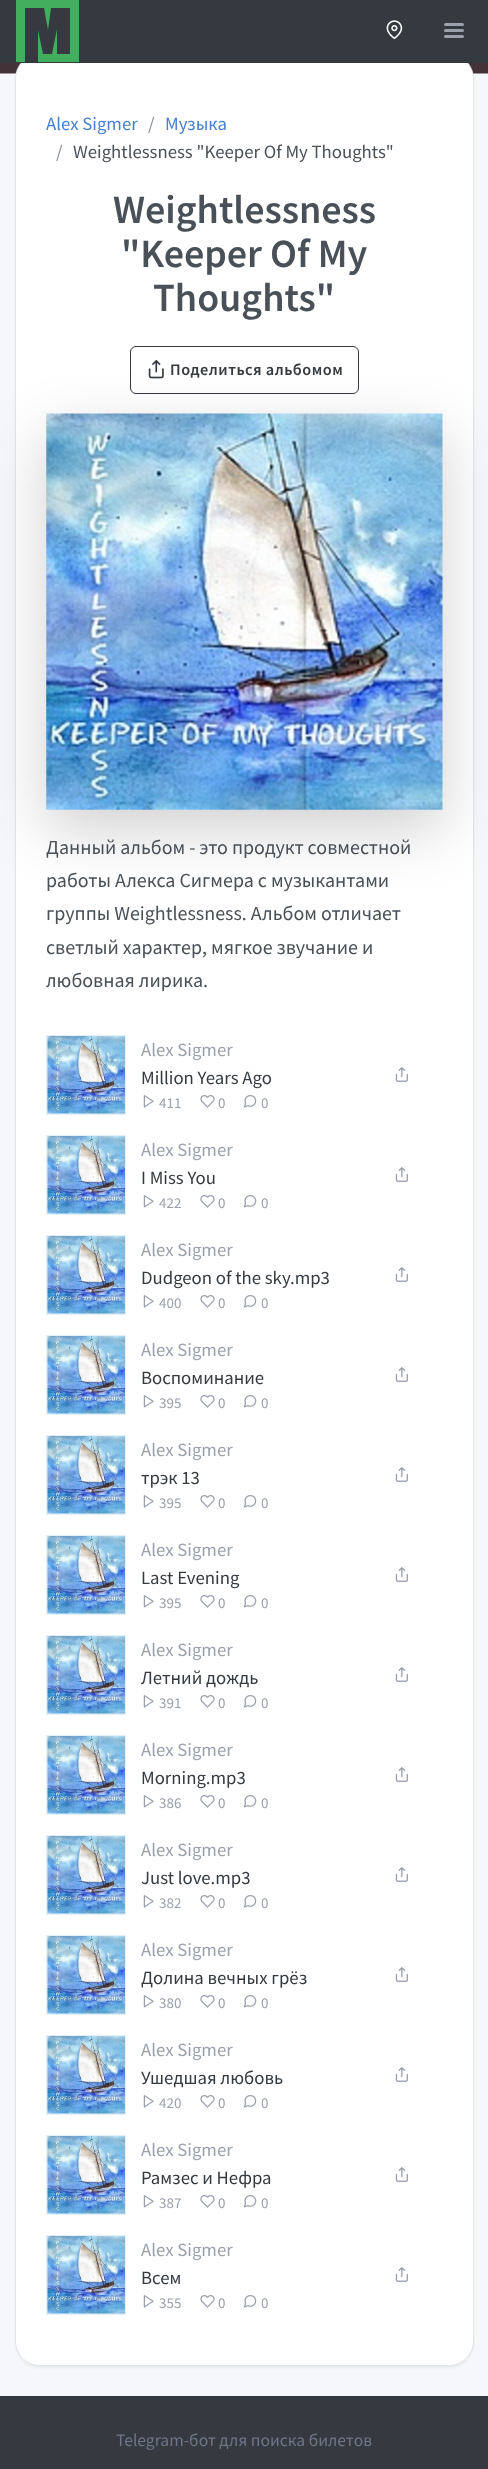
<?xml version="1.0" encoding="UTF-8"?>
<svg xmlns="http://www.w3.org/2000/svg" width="488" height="2469">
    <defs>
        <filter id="blur1" x="-50%" y="-200%" width="200%" height="500%"><feGaussianBlur stdDeviation="1"/></filter>
        <filter id="blur2" x="-50%" y="-200%" width="200%" height="500%"><feGaussianBlur stdDeviation="30"/></filter>
    </defs>
    <rect width="100%" height="100%" fill="#F5F7FB"/>
    <image x="0" y="63" width="488" height="11" href="img_02.png"/>
    <rect x="15" y="55" width="459" height="2313" rx="25" fill="#000000" fill-opacity="0.05" filter="url(#blur1)"/>
    <rect x="15" y="54" width="459" height="2312" rx="25" fill="#FFFFFF"/>
    <rect x="15.5" y="54.5" width="458" height="2311" rx="24.5" fill="none" stroke="#002864" stroke-opacity="0.12"/>
    <rect x="0" y="0" width="488" height="63" fill="#343A40"/>
    <path d="M 16 0 H 79 V 62 H 38 V 30 L 43 54 H 52 L 57 29 V 54 H 70 V 8 H 51 L 48 30 L 44 8 H 25 V 62 H 16 Z" fill="#43AE5E"/>
    <image x="386" y="20" width="17" height="19" href="img_01.png"/>
    <rect x="444" y="23" width="20" height="3" rx="1.5" fill="#9AA0AC"/>
    <rect x="444" y="35" width="20" height="3" rx="1.5" fill="#9AA0AC"/>
    <rect x="444" y="29" width="20" height="3" rx="1.5" fill="#9AA0AC"/>
    <text x="46" y="130" font-family="Source Sans Pro" font-size="18.75" fill="#467FCF">Alex Sigmer</text>
    <text x="148" y="130" font-family="Source Sans Pro" font-size="18.75" fill="#868E96">/</text>
    <text x="165" y="130" font-family="Source Sans Pro" font-size="18.75" fill="#467FCF">Музыка</text>
    <text x="56" y="158" font-family="Source Sans Pro" font-size="18.75" fill="#868E96">/</text>
    <text x="73" y="158" font-family="Source Sans Pro" font-size="18.75" fill="#495057">Weightlessness "Keeper Of My Thoughts"</text>
    <text x="113" y="223" font-family="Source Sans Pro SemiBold" font-size="40" font-weight="600" fill="#495057">Weightlessness</text>
    <text x="121" y="267" font-family="Source Sans Pro SemiBold" font-size="40" font-weight="600" fill="#495057">"Keeper Of My</text>
    <text x="153" y="311" font-family="Source Sans Pro SemiBold" font-size="40" font-weight="600" fill="#495057">Thoughts"</text>
    <rect x="130.5" y="346.5" width="228" height="47" rx="5.5" fill="none" stroke="#343A40"/>
    <image x="148" y="360" width="16" height="19" href="img_03.png"/>
    <text x="170" y="375" font-family="Source Sans Pro SemiBold" font-size="16.25" font-weight="600" letter-spacing="0.5" fill="#343A40">Поделиться альбомом</text>
    <rect x="46" y="434" width="397" height="396" fill="#000000" fill-opacity="0.18" filter="url(#blur2)"/>
    <image x="46" y="413" width="397" height="397" href="img_04.png"/>
    <text font-family="Source Sans Pro" font-size="20" fill="#495057">
        <tspan x="46" y="854">Данный альбом - это продукт совместной</tspan>
        <tspan x="46" y="887">работы Алекса Сигмера с музыкантами</tspan>
        <tspan x="46" y="920">группы Weightlessness. Альбом отличает</tspan>
        <tspan x="46" y="954">светлый характер, мягкое звучание и</tspan>
        <tspan x="46" y="987">любовная лирика.</tspan>
    </text>
    <rect x="46" y="1035" width="80" height="80" fill="#E6EFF5"/>
    <image x="47" y="1036" width="78" height="78" href="img_05.png"/>
    <text x="141" y="1056" font-family="Source Sans Pro" font-size="18.75" fill="#9AA0AC">Alex Sigmer</text>
    <text x="141" y="1084" font-family="Source Sans Pro" font-size="18.75" fill="#343A40">Million Years Ago</text>
    <image x="143" y="1095" width="11" height="13" href="img_06.png"/>
    <text x="159" y="1108" font-family="Source Sans Pro" font-size="15" fill="#9AA0AC">411</text>
    <image x="200" y="1095" width="15" height="13" href="img_07.png"/>
    <text x="218" y="1108" font-family="Source Sans Pro" font-size="15" fill="#9AA0AC">0</text>
    <image x="243" y="1095" width="14" height="13" href="img_08.png"/>
    <text x="261" y="1108" font-family="Source Sans Pro" font-size="15" fill="#9AA0AC">0</text>
    <image x="395" y="1067" width="13" height="15" href="img_09.png"/>
    <rect x="46" y="1135" width="80" height="80" fill="#E6EFF5"/>
    <image x="47" y="1136" width="78" height="78" href="img_05.png"/>
    <text x="141" y="1156" font-family="Source Sans Pro" font-size="18.75" fill="#9AA0AC">Alex Sigmer</text>
    <text x="141" y="1184" font-family="Source Sans Pro" font-size="18.75" fill="#343A40">I Miss You</text>
    <image x="143" y="1195" width="11" height="13" href="img_06.png"/>
    <text x="159" y="1208" font-family="Source Sans Pro" font-size="15" fill="#9AA0AC">422</text>
    <image x="200" y="1195" width="15" height="13" href="img_07.png"/>
    <text x="218" y="1208" font-family="Source Sans Pro" font-size="15" fill="#9AA0AC">0</text>
    <image x="243" y="1195" width="14" height="13" href="img_08.png"/>
    <text x="261" y="1208" font-family="Source Sans Pro" font-size="15" fill="#9AA0AC">0</text>
    <image x="395" y="1167" width="13" height="15" href="img_09.png"/>
    <rect x="46" y="1235" width="80" height="80" fill="#E6EFF5"/>
    <image x="47" y="1236" width="78" height="78" href="img_05.png"/>
    <text x="141" y="1256" font-family="Source Sans Pro" font-size="18.75" fill="#9AA0AC">Alex Sigmer</text>
    <text x="141" y="1284" font-family="Source Sans Pro" font-size="18.75" fill="#343A40">Dudgeon of the sky.mp3</text>
    <image x="143" y="1295" width="11" height="13" href="img_06.png"/>
    <text x="159" y="1308" font-family="Source Sans Pro" font-size="15" fill="#9AA0AC">400</text>
    <image x="200" y="1295" width="15" height="13" href="img_07.png"/>
    <text x="218" y="1308" font-family="Source Sans Pro" font-size="15" fill="#9AA0AC">0</text>
    <image x="243" y="1295" width="14" height="13" href="img_08.png"/>
    <text x="261" y="1308" font-family="Source Sans Pro" font-size="15" fill="#9AA0AC">0</text>
    <image x="395" y="1267" width="13" height="15" href="img_09.png"/>
    <rect x="46" y="1335" width="80" height="80" fill="#E6EFF5"/>
    <image x="47" y="1336" width="78" height="78" href="img_05.png"/>
    <text x="141" y="1356" font-family="Source Sans Pro" font-size="18.75" fill="#9AA0AC">Alex Sigmer</text>
    <text x="141" y="1384" font-family="Source Sans Pro" font-size="18.75" fill="#343A40">Воспоминание</text>
    <image x="143" y="1395" width="11" height="13" href="img_06.png"/>
    <text x="159" y="1408" font-family="Source Sans Pro" font-size="15" fill="#9AA0AC">395</text>
    <image x="200" y="1395" width="15" height="13" href="img_07.png"/>
    <text x="218" y="1408" font-family="Source Sans Pro" font-size="15" fill="#9AA0AC">0</text>
    <image x="243" y="1395" width="14" height="13" href="img_08.png"/>
    <text x="261" y="1408" font-family="Source Sans Pro" font-size="15" fill="#9AA0AC">0</text>
    <image x="395" y="1367" width="13" height="15" href="img_09.png"/>
    <rect x="46" y="1435" width="80" height="80" fill="#E6EFF5"/>
    <image x="47" y="1436" width="78" height="78" href="img_05.png"/>
    <text x="141" y="1456" font-family="Source Sans Pro" font-size="18.75" fill="#9AA0AC">Alex Sigmer</text>
    <text x="141" y="1484" font-family="Source Sans Pro" font-size="18.75" fill="#343A40">трэк 13</text>
    <image x="143" y="1495" width="11" height="13" href="img_06.png"/>
    <text x="159" y="1508" font-family="Source Sans Pro" font-size="15" fill="#9AA0AC">395</text>
    <image x="200" y="1495" width="15" height="13" href="img_07.png"/>
    <text x="218" y="1508" font-family="Source Sans Pro" font-size="15" fill="#9AA0AC">0</text>
    <image x="243" y="1495" width="14" height="13" href="img_08.png"/>
    <text x="261" y="1508" font-family="Source Sans Pro" font-size="15" fill="#9AA0AC">0</text>
    <image x="395" y="1467" width="13" height="15" href="img_09.png"/>
    <rect x="46" y="1535" width="80" height="80" fill="#E6EFF5"/>
    <image x="47" y="1536" width="78" height="78" href="img_05.png"/>
    <text x="141" y="1556" font-family="Source Sans Pro" font-size="18.75" fill="#9AA0AC">Alex Sigmer</text>
    <text x="141" y="1584" font-family="Source Sans Pro" font-size="18.75" fill="#343A40">Last Evening</text>
    <image x="143" y="1595" width="11" height="13" href="img_06.png"/>
    <text x="159" y="1608" font-family="Source Sans Pro" font-size="15" fill="#9AA0AC">395</text>
    <image x="200" y="1595" width="15" height="13" href="img_07.png"/>
    <text x="218" y="1608" font-family="Source Sans Pro" font-size="15" fill="#9AA0AC">0</text>
    <image x="243" y="1595" width="14" height="13" href="img_08.png"/>
    <text x="261" y="1608" font-family="Source Sans Pro" font-size="15" fill="#9AA0AC">0</text>
    <image x="395" y="1567" width="13" height="15" href="img_09.png"/>
    <rect x="46" y="1635" width="80" height="80" fill="#E6EFF5"/>
    <image x="47" y="1636" width="78" height="78" href="img_05.png"/>
    <text x="141" y="1656" font-family="Source Sans Pro" font-size="18.75" fill="#9AA0AC">Alex Sigmer</text>
    <text x="141" y="1684" font-family="Source Sans Pro" font-size="18.75" fill="#343A40">Летний дождь</text>
    <image x="143" y="1695" width="11" height="13" href="img_06.png"/>
    <text x="159" y="1708" font-family="Source Sans Pro" font-size="15" fill="#9AA0AC">391</text>
    <image x="200" y="1695" width="15" height="13" href="img_07.png"/>
    <text x="218" y="1708" font-family="Source Sans Pro" font-size="15" fill="#9AA0AC">0</text>
    <image x="243" y="1695" width="14" height="13" href="img_08.png"/>
    <text x="261" y="1708" font-family="Source Sans Pro" font-size="15" fill="#9AA0AC">0</text>
    <image x="395" y="1667" width="13" height="15" href="img_09.png"/>
    <rect x="46" y="1735" width="80" height="80" fill="#E6EFF5"/>
    <image x="47" y="1736" width="78" height="78" href="img_05.png"/>
    <text x="141" y="1756" font-family="Source Sans Pro" font-size="18.75" fill="#9AA0AC">Alex Sigmer</text>
    <text x="141" y="1784" font-family="Source Sans Pro" font-size="18.75" fill="#343A40">Morning.mp3</text>
    <image x="143" y="1795" width="11" height="13" href="img_06.png"/>
    <text x="159" y="1808" font-family="Source Sans Pro" font-size="15" fill="#9AA0AC">386</text>
    <image x="200" y="1795" width="15" height="13" href="img_07.png"/>
    <text x="218" y="1808" font-family="Source Sans Pro" font-size="15" fill="#9AA0AC">0</text>
    <image x="243" y="1795" width="14" height="13" href="img_08.png"/>
    <text x="261" y="1808" font-family="Source Sans Pro" font-size="15" fill="#9AA0AC">0</text>
    <image x="395" y="1767" width="13" height="15" href="img_09.png"/>
    <rect x="46" y="1835" width="80" height="80" fill="#E6EFF5"/>
    <image x="47" y="1836" width="78" height="78" href="img_05.png"/>
    <text x="141" y="1856" font-family="Source Sans Pro" font-size="18.75" fill="#9AA0AC">Alex Sigmer</text>
    <text x="141" y="1884" font-family="Source Sans Pro" font-size="18.75" fill="#343A40">Just love.mp3</text>
    <image x="143" y="1895" width="11" height="13" href="img_06.png"/>
    <text x="159" y="1908" font-family="Source Sans Pro" font-size="15" fill="#9AA0AC">382</text>
    <image x="200" y="1895" width="15" height="13" href="img_07.png"/>
    <text x="218" y="1908" font-family="Source Sans Pro" font-size="15" fill="#9AA0AC">0</text>
    <image x="243" y="1895" width="14" height="13" href="img_08.png"/>
    <text x="261" y="1908" font-family="Source Sans Pro" font-size="15" fill="#9AA0AC">0</text>
    <image x="395" y="1867" width="13" height="15" href="img_09.png"/>
    <rect x="46" y="1935" width="80" height="80" fill="#E6EFF5"/>
    <image x="47" y="1936" width="78" height="78" href="img_05.png"/>
    <text x="141" y="1956" font-family="Source Sans Pro" font-size="18.75" fill="#9AA0AC">Alex Sigmer</text>
    <text x="141" y="1984" font-family="Source Sans Pro" font-size="18.75" fill="#343A40">Долина вечных грёз</text>
    <image x="143" y="1995" width="11" height="13" href="img_06.png"/>
    <text x="159" y="2008" font-family="Source Sans Pro" font-size="15" fill="#9AA0AC">380</text>
    <image x="200" y="1995" width="15" height="13" href="img_07.png"/>
    <text x="218" y="2008" font-family="Source Sans Pro" font-size="15" fill="#9AA0AC">0</text>
    <image x="243" y="1995" width="14" height="13" href="img_08.png"/>
    <text x="261" y="2008" font-family="Source Sans Pro" font-size="15" fill="#9AA0AC">0</text>
    <image x="395" y="1967" width="13" height="15" href="img_09.png"/>
    <rect x="46" y="2035" width="80" height="80" fill="#E6EFF5"/>
    <image x="47" y="2036" width="78" height="78" href="img_05.png"/>
    <text x="141" y="2056" font-family="Source Sans Pro" font-size="18.75" fill="#9AA0AC">Alex Sigmer</text>
    <text x="141" y="2084" font-family="Source Sans Pro" font-size="18.75" fill="#343A40">Ушедшая любовь</text>
    <image x="143" y="2095" width="11" height="13" href="img_06.png"/>
    <text x="159" y="2108" font-family="Source Sans Pro" font-size="15" fill="#9AA0AC">420</text>
    <image x="200" y="2095" width="15" height="13" href="img_07.png"/>
    <text x="218" y="2108" font-family="Source Sans Pro" font-size="15" fill="#9AA0AC">0</text>
    <image x="243" y="2095" width="14" height="13" href="img_08.png"/>
    <text x="261" y="2108" font-family="Source Sans Pro" font-size="15" fill="#9AA0AC">0</text>
    <image x="395" y="2067" width="13" height="15" href="img_09.png"/>
    <rect x="46" y="2135" width="80" height="80" fill="#E6EFF5"/>
    <image x="47" y="2136" width="78" height="78" href="img_10.png"/>
    <text x="141" y="2156" font-family="Source Sans Pro" font-size="18.75" fill="#9AA0AC">Alex Sigmer</text>
    <text x="141" y="2184" font-family="Source Sans Pro" font-size="18.75" fill="#343A40">Рамзес и Нефра</text>
    <image x="143" y="2195" width="11" height="13" href="img_06.png"/>
    <text x="159" y="2208" font-family="Source Sans Pro" font-size="15" fill="#9AA0AC">387</text>
    <image x="200" y="2195" width="15" height="13" href="img_07.png"/>
    <text x="218" y="2208" font-family="Source Sans Pro" font-size="15" fill="#9AA0AC">0</text>
    <image x="243" y="2195" width="14" height="13" href="img_08.png"/>
    <text x="261" y="2208" font-family="Source Sans Pro" font-size="15" fill="#9AA0AC">0</text>
    <image x="395" y="2167" width="13" height="15" href="img_09.png"/>
    <rect x="46" y="2235" width="80" height="80" fill="#E6EFF5"/>
    <image x="47" y="2236" width="78" height="78" href="img_05.png"/>
    <text x="141" y="2256" font-family="Source Sans Pro" font-size="18.75" fill="#9AA0AC">Alex Sigmer</text>
    <text x="141" y="2284" font-family="Source Sans Pro" font-size="18.75" fill="#343A40">Всем</text>
    <image x="143" y="2295" width="11" height="13" href="img_06.png"/>
    <text x="159" y="2308" font-family="Source Sans Pro" font-size="15" fill="#9AA0AC">355</text>
    <image x="200" y="2295" width="15" height="13" href="img_07.png"/>
    <text x="218" y="2308" font-family="Source Sans Pro" font-size="15" fill="#9AA0AC">0</text>
    <image x="243" y="2295" width="14" height="13" href="img_08.png"/>
    <text x="261" y="2308" font-family="Source Sans Pro" font-size="15" fill="#9AA0AC">0</text>
    <image x="395" y="2267" width="13" height="15" href="img_09.png"/>
    <rect x="0" y="2397" width="488" height="72" fill="#343A40"/>
    <rect x="0" y="2396" width="488" height="1" fill="#2E3844"/>
    <text x="116" y="2446" font-family="Source Sans Pro" font-size="17.5" fill="#6E7687">Telegram-бот для поиска билетов</text>
</svg>
